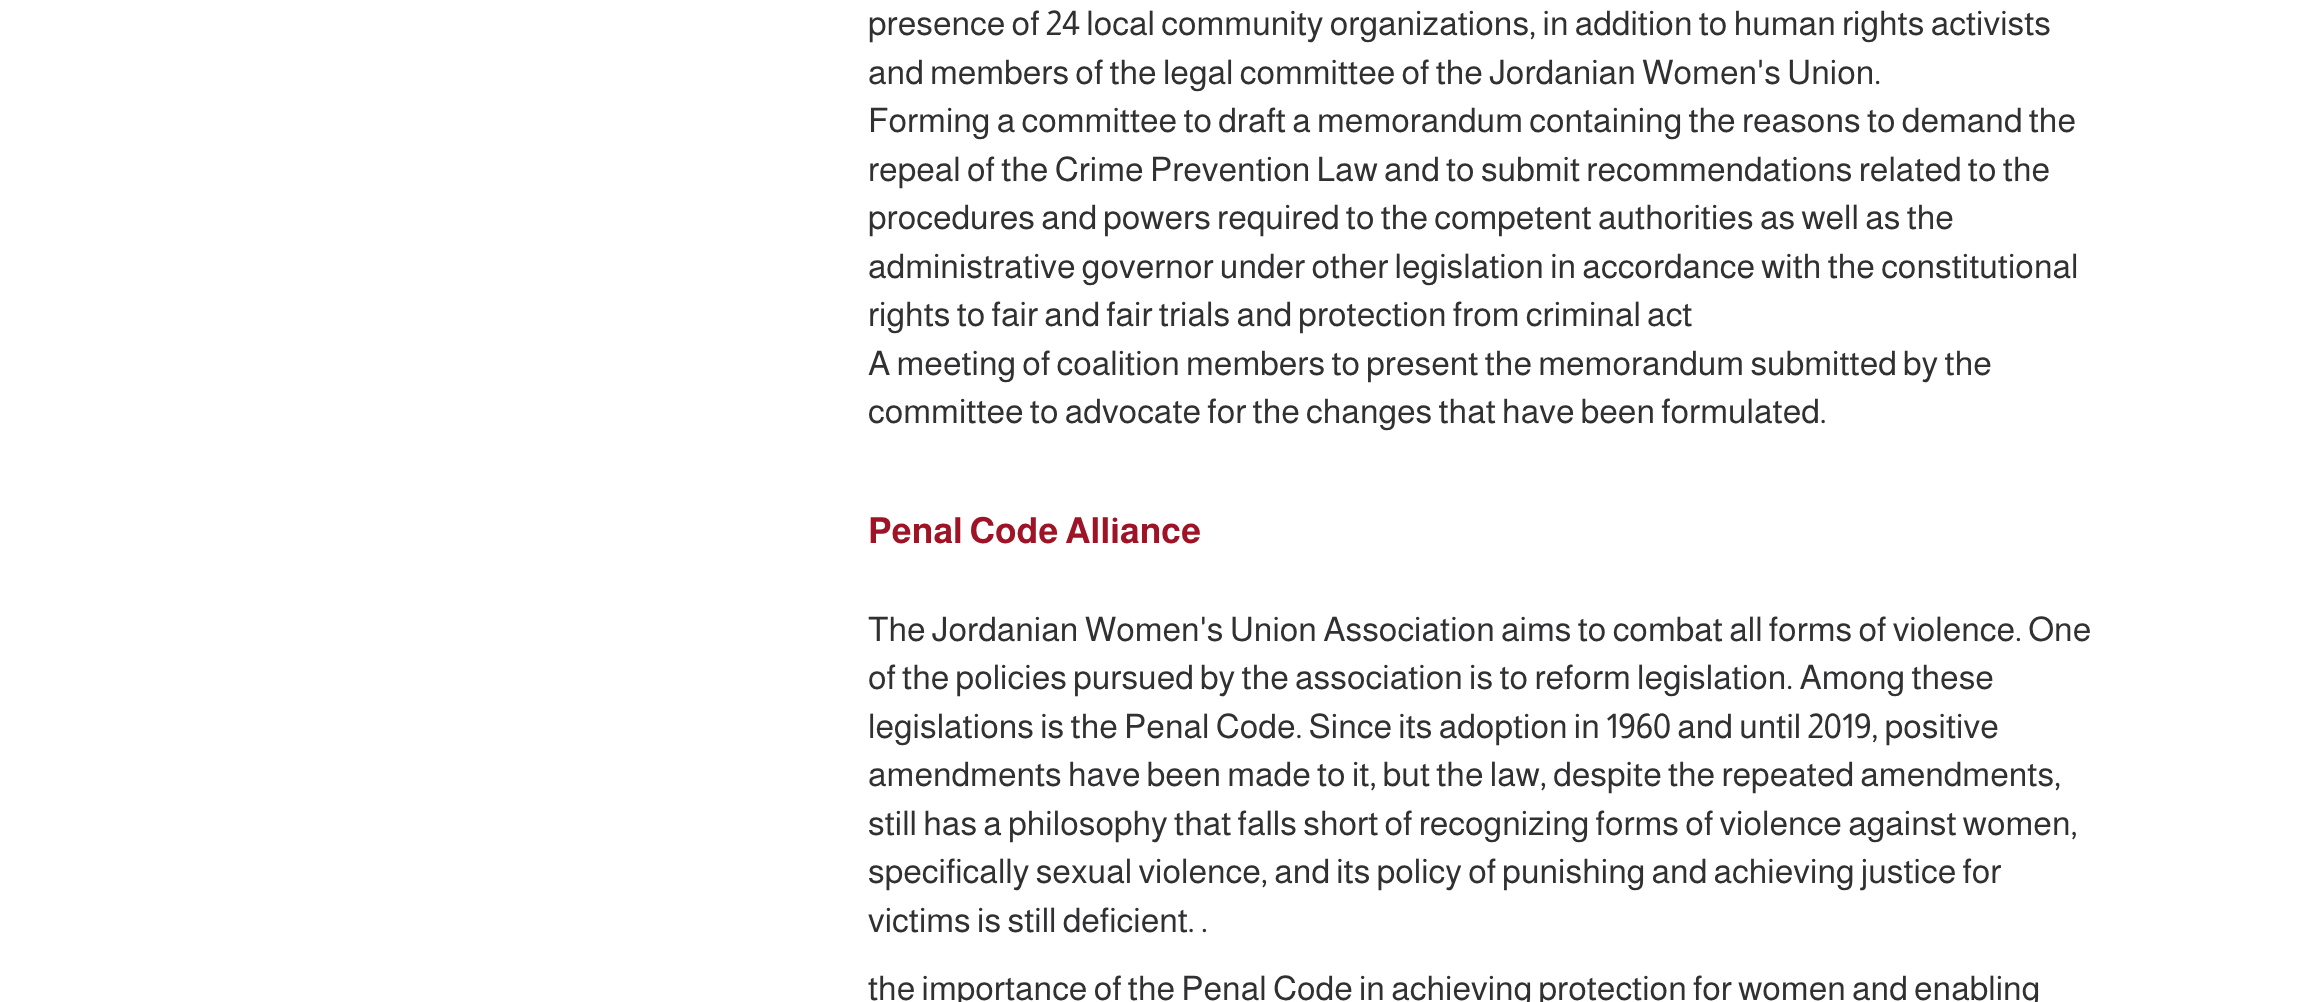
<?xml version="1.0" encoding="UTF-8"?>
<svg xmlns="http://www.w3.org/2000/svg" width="2321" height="1002">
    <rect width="100%" height="100%" fill="#FFFFFF"/>
    <text font-family="Almarai" font-size="34" fill="#313133">
        <tspan x="868" y="35">presence of 24 local community organizations, in addition to human rights activists</tspan>
        <tspan x="868" y="84">and members of the legal committee of the Jordanian Women's Union.</tspan>
        <tspan x="868" y="132">Forming a committee to draft a memorandum containing the reasons to demand the</tspan>
        <tspan x="868" y="181">repeal of the Crime Prevention Law and to submit recommendations related to the</tspan>
        <tspan x="868" y="229">procedures and powers required to the competent authorities as well as the</tspan>
        <tspan x="868" y="278">administrative governor under other legislation in accordance with the constitutional</tspan>
        <tspan x="868" y="326">rights to fair and fair trials and protection from criminal act</tspan>
        <tspan x="868" y="375">A meeting of coalition members to present the memorandum submitted by the</tspan>
        <tspan x="868" y="423">committee to advocate for the changes that have been formulated.</tspan>
    </text>
    <text x="868" y="543" font-family="Almarai" font-size="36" font-weight="700" fill="#9E1325">Penal Code Alliance</text>
    <text font-family="Almarai" font-size="34" fill="#313133">
        <tspan x="868" y="641">The Jordanian Women's Union Association aims to combat all forms of violence. One</tspan>
        <tspan x="868" y="689">of the policies pursued by the association is to reform legislation. Among these</tspan>
        <tspan x="868" y="738">legislations is the Penal Code. Since its adoption in 1960 and until 2019, positive</tspan>
        <tspan x="868" y="786">amendments have been made to it, but the law, despite the repeated amendments,</tspan>
        <tspan x="868" y="835">still has a philosophy that falls short of recognizing forms of violence against women,</tspan>
        <tspan x="868" y="883">specifically sexual violence, and its policy of punishing and achieving justice for</tspan>
        <tspan x="868" y="932">victims is still deficient. .</tspan>
    </text>
    <text x="868" y="1000" font-family="Almarai" font-size="34" fill="#313133">the importance of the Penal Code in achieving protection for women and enabling</text>
</svg>
